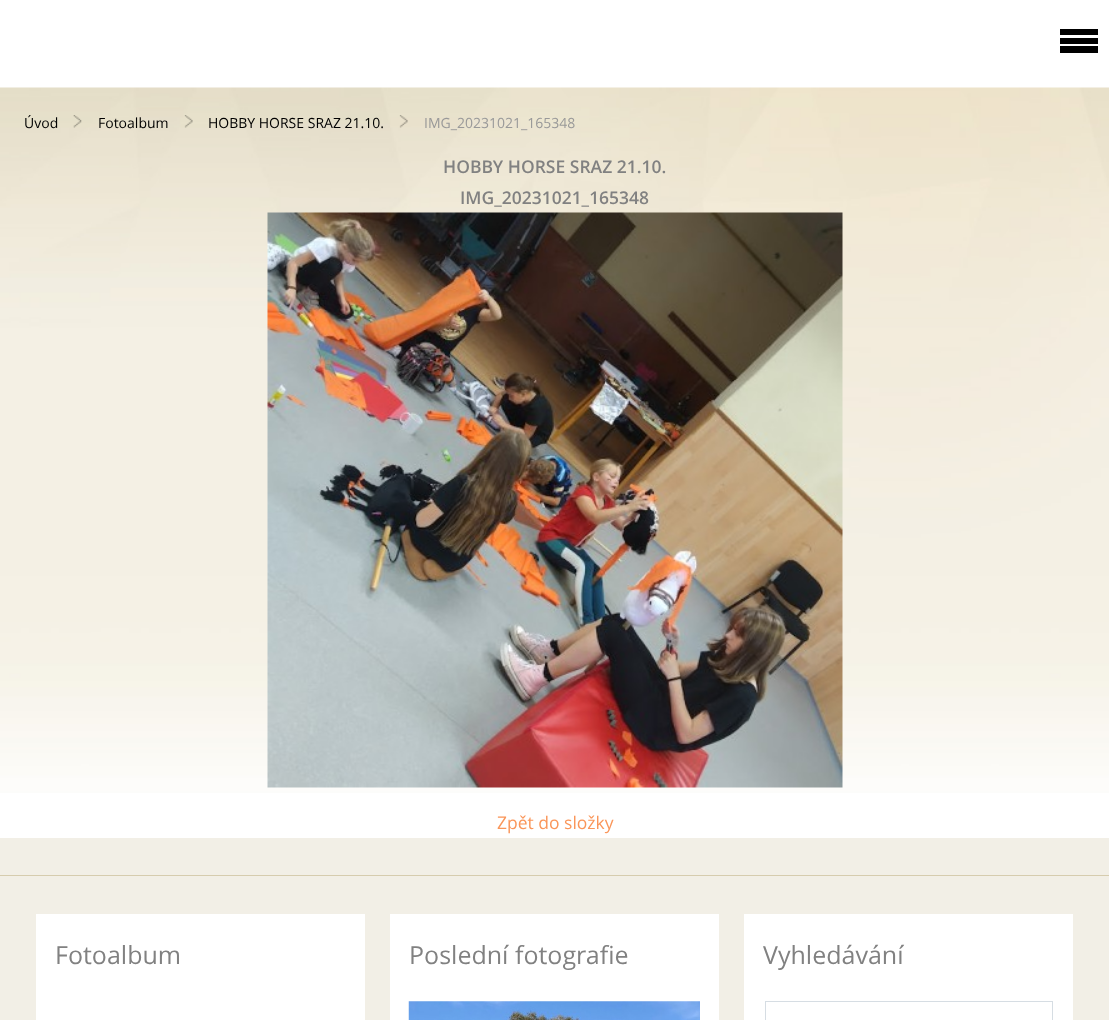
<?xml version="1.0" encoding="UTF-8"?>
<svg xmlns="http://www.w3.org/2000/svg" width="1109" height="1020">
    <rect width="100%" height="100%" fill="#F2EFE6"/>
    <rect x="0" y="0" width="1109" height="88" fill="#FFFFFF"/>
    <rect x="1060" y="29" width="38" height="6" fill="#000000"/>
    <rect x="1060" y="38" width="38" height="6" fill="#000000"/>
    <rect x="1060" y="46" width="38" height="7" fill="#000000"/>
    <rect x="0" y="793" width="1109" height="45" fill="#FFFFFF"/>
    <image x="0" y="87" width="1109" height="706" href="img_01.png"/>
    <text x="24" y="128" font-family="Open Sans" font-size="14" fill="#000000">Úvod</text>
    <image x="73" y="115" width="9" height="13" href="img_02.png"/>
    <text x="98" y="128" font-family="Open Sans" font-size="14" fill="#000000">Fotoalbum</text>
    <image x="184" y="115" width="9" height="13" href="img_03.png"/>
    <text x="208" y="128" font-family="Open Sans" font-size="14" fill="#000000">HOBBY HORSE SRAZ 21.10.</text>
    <image x="399" y="115" width="9" height="13" href="img_04.png"/>
    <text x="424" y="128" font-family="Open Sans" font-size="14" fill="#999999">IMG_20231021_165348</text>
    <text x="443" y="173" font-family="Open Sans" font-size="17.5" font-weight="600" fill="#818181">HOBBY HORSE SRAZ 21.10.</text>
    <text x="460" y="204" font-family="Open Sans" font-size="17.5" font-weight="600" fill="#818181">IMG_20231021_165348</text>
    <image x="267" y="212" width="576" height="576" href="img_05.png"/>
    <text x="497" y="829" font-family="Open Sans" font-size="17.5" fill="#FA965A">Zpět do složky</text>
    <rect x="0" y="875" width="1109" height="1" fill="#D6CCAE"/>
    <rect x="36" y="914" width="329" height="106" fill="#FFFFFF"/>
    <text x="55" y="964" font-family="Open Sans" font-size="25" fill="#818181">Fotoalbum</text>
    <rect x="390" y="914" width="329" height="106" fill="#FFFFFF"/>
    <text x="409" y="964" font-family="Open Sans" font-size="25" fill="#818181">Poslední fotografie</text>
    <image x="408" y="1001" width="292" height="19" href="img_06.png"/>
    <rect x="744" y="914" width="329" height="106" fill="#FFFFFF"/>
    <text x="763" y="964" font-family="Open Sans" font-size="25" fill="#818181">Vyhledávání</text>
    <rect x="765.5" y="1001.5" width="287" height="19" fill="none" stroke="#D6DDE3"/>
</svg>
